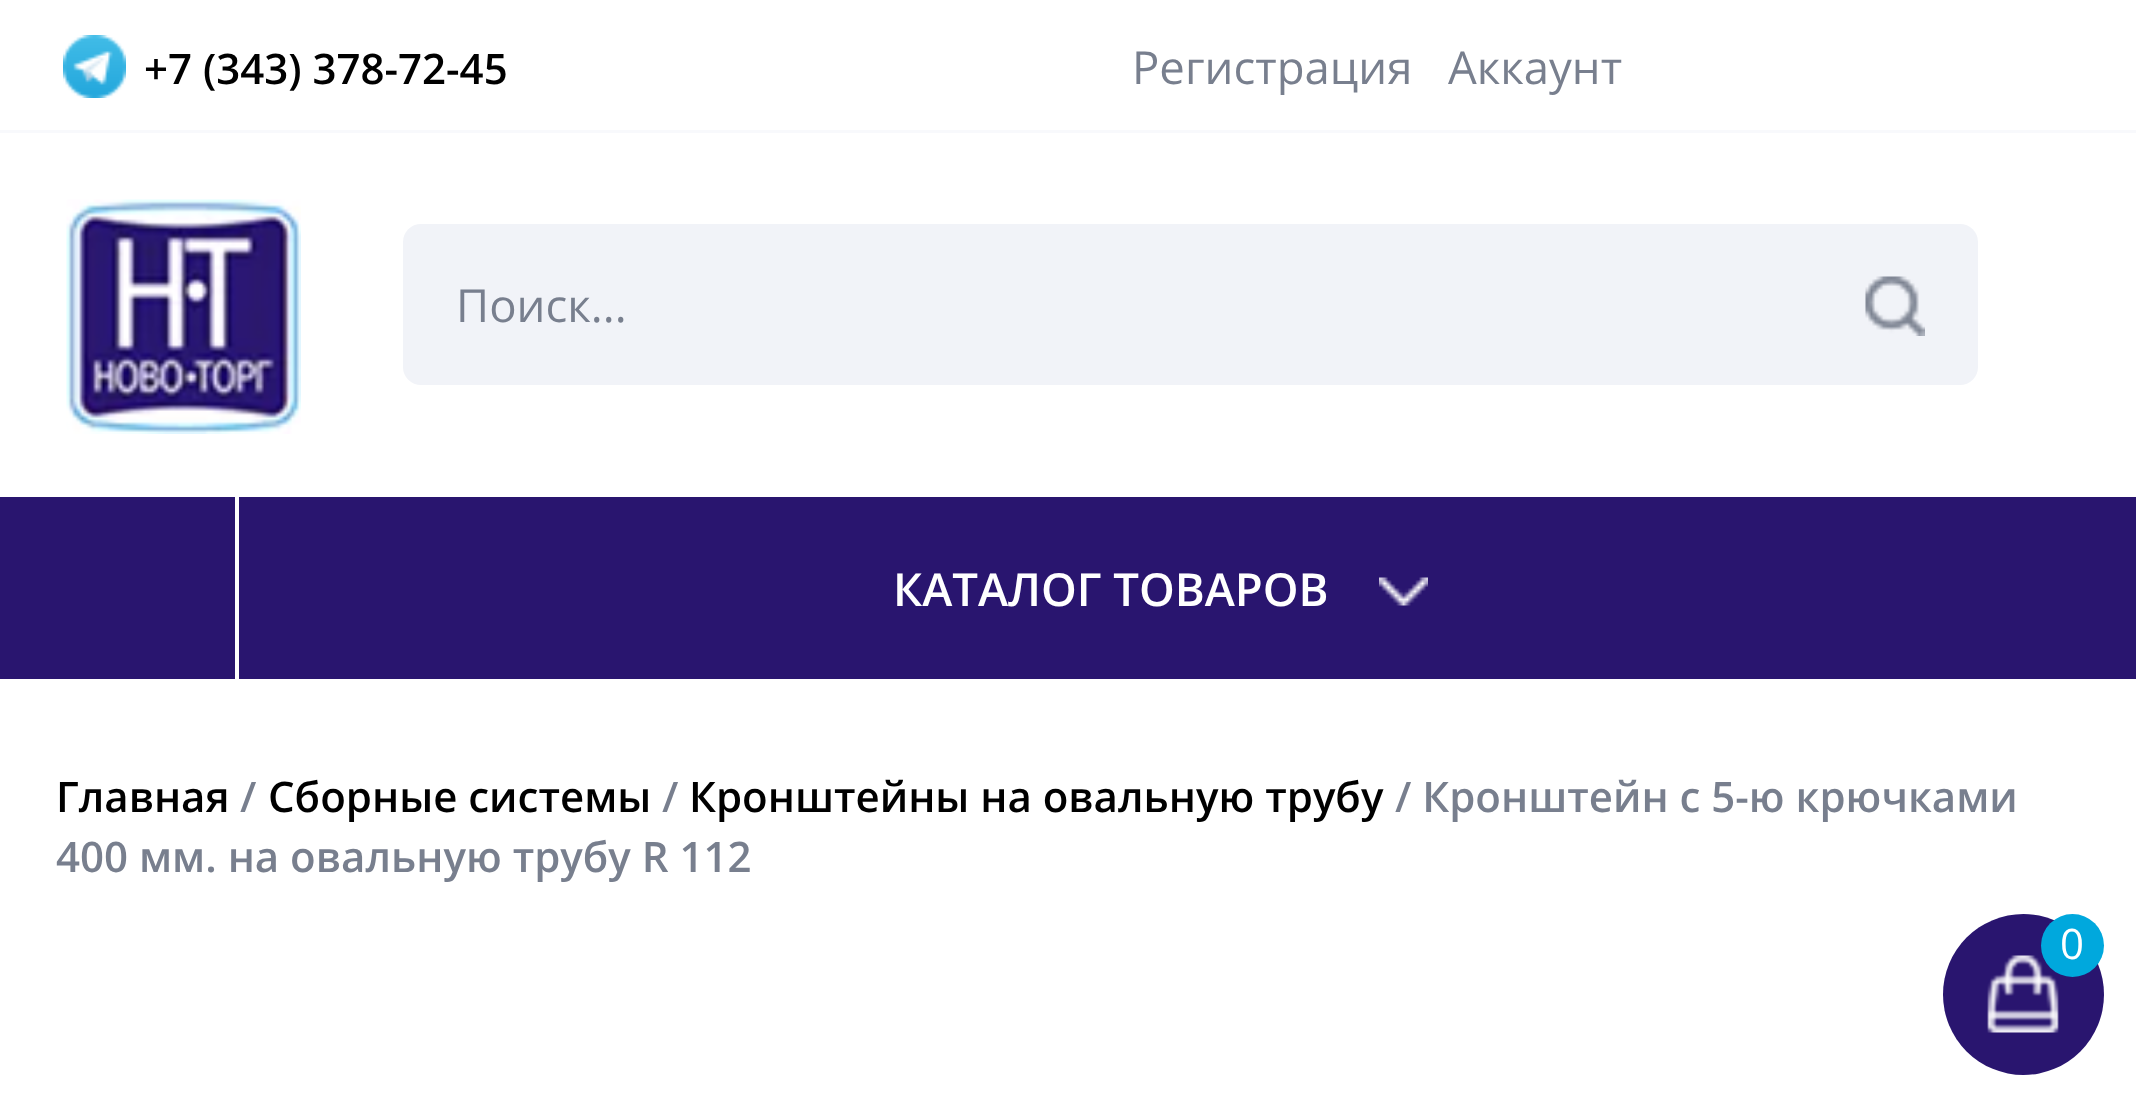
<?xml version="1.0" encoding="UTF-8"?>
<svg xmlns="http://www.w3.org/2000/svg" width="2136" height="1108">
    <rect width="100%" height="100%" fill="#FFFFFF"/>
    <rect x="0" y="130" width="2136" height="3" fill="#F8F9FC"/>
    <image x="63" y="35" width="63" height="63" href="img_01.png"/>
    <text x="144" y="84" font-family="Open Sans" font-size="42" font-weight="600" fill="#000000">+7 (343) 378-72-45</text>
    <text x="1132" y="84" font-family="Open Sans" font-size="45.5" fill="#787F8E">Регистрация</text>
    <text x="1448" y="84" font-family="Open Sans" font-size="45.5" fill="#787F8E">Аккаунт</text>
    <image x="66" y="199" width="235" height="235" href="img_02.png"/>
    <rect x="403" y="224" width="1575" height="161" rx="18" fill="#F1F3F8"/>
    <text x="456" y="322" font-family="Open Sans" font-size="45.5" fill="#787F8E">Поиск...</text>
    <image x="1865" y="276" width="60" height="60" href="img_03.png"/>
    <circle cx="2023.5" cy="994.5" r="80.5" fill="#29156F"/>
    <image x="1987" y="955" width="72" height="78" href="img_04.png"/>
    <circle cx="2072.5" cy="945.5" r="31.5" fill="#00A8DD"/>
    <text x="2060" y="959" font-family="Open Sans" font-size="42" fill="#FFFFFF">0</text>
    <rect x="0" y="497" width="2136" height="182" fill="#29156F"/>
    <rect x="235" y="497" width="4" height="182" fill="#FFFFFF"/>
    <text x="893" y="606" font-family="Open Sans" font-size="45.5" font-weight="600" fill="#FFFFFF">КАТАЛОГ ТОВАРОВ</text>
    <image x="1379" y="577" width="49" height="29" href="img_05.png"/>
    <text x="56" y="812" font-family="Open Sans" font-size="42" font-weight="600" fill="#000000">Главная</text>
    <text x="240" y="812" font-family="Open Sans" font-size="42" font-weight="600" fill="#787F8E">/</text>
    <text x="268" y="812" font-family="Open Sans" font-size="42" font-weight="600" fill="#000000">Сборные системы</text>
    <text x="662" y="812" font-family="Open Sans" font-size="42" font-weight="600" fill="#787F8E">/</text>
    <text x="689" y="812" font-family="Open Sans" font-size="42" font-weight="600" fill="#000000">Кронштейны на овальную трубу</text>
    <text x="1395" y="812" font-family="Open Sans" font-size="42" font-weight="600" fill="#787F8E">/ Кронштейн с 5-ю крючками</text>
    <text x="56" y="872" font-family="Open Sans" font-size="42" font-weight="600" fill="#787F8E">400 мм. на овальную трубу R 112</text>
</svg>
